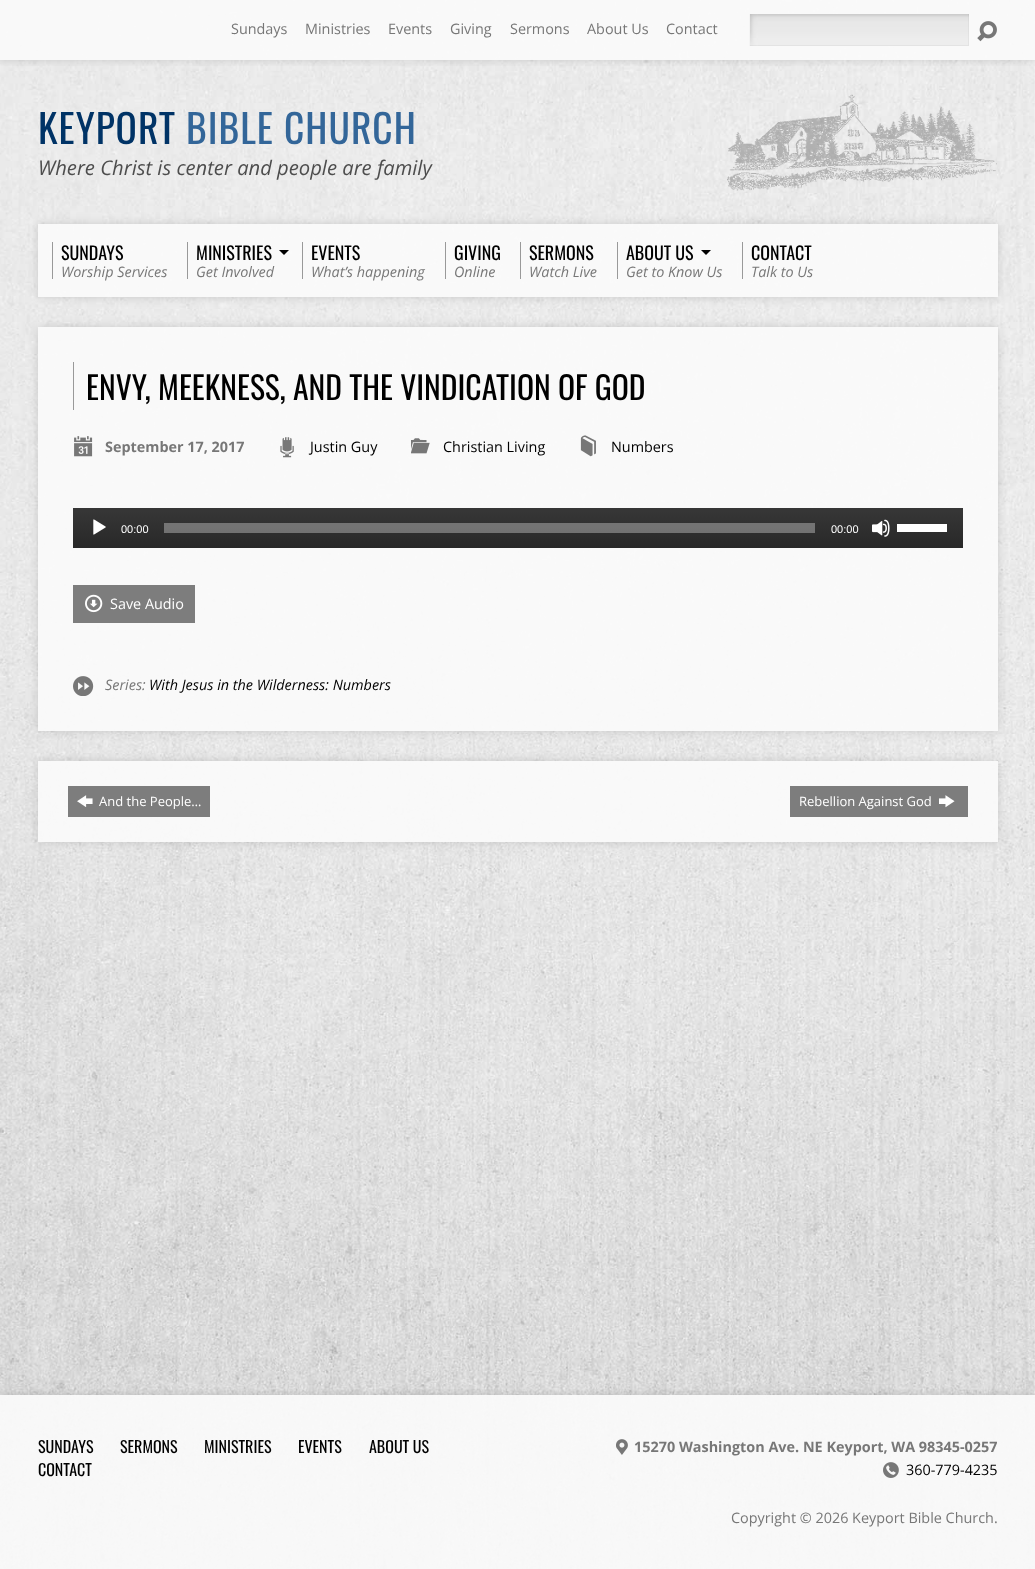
<?xml version="1.0" encoding="UTF-8"?>
<svg xmlns="http://www.w3.org/2000/svg" width="1035" height="1569">
    <defs>
        <clipPath id="clip1"><rect x="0" y="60" width="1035" height="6"/></clipPath>
        <filter id="blur1" x="-50%" y="-200%" width="200%" height="500%"><feGaussianBlur stdDeviation="5"/></filter>
        <clipPath id="clip2"><path d="M 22 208 H 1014 V 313 H 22 Z M 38 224 H 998 V 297 H 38 Z" clip-rule="evenodd"/></clipPath>
        <clipPath id="clip3"><path d="M 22 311 H 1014 V 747 H 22 Z M 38 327 H 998 V 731 H 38 Z" clip-rule="evenodd"/></clipPath>
        <linearGradient id="g1" gradientUnits="userSpaceOnUse" x1="518" y1="508" x2="518" y2="548"><stop offset="0" stop-color="#373737"/><stop offset="1" stop-color="#282828"/></linearGradient>
        <clipPath id="clip4"><path d="M 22 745 H 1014 V 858 H 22 Z M 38 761 H 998 V 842 H 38 Z" clip-rule="evenodd"/></clipPath>
        <clipPath id="clip5"><rect x="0" y="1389" width="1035" height="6"/></clipPath>
    </defs>
    <rect width="100%" height="100%" fill="#FFFFFF"/>
    <image x="0" y="0" width="1035" height="1569" href="img_01.png"/>
    <g clip-path="url(#clip1)">
        <rect x="0" y="0" width="1035" height="60" fill="#000000" fill-opacity="0.15" filter="url(#blur1)"/>
    </g>
    <rect x="0" y="0" width="1035" height="60" fill="#FAFAFA" fill-opacity="0.94"/>
    <text x="231" y="34" font-family="Open Sans" font-size="14.4" fill="#777777">Sundays</text>
    <text x="305" y="34" font-family="Open Sans" font-size="14.4" fill="#777777">Ministries</text>
    <text x="388" y="34" font-family="Open Sans" font-size="14.4" fill="#777777">Events</text>
    <text x="450" y="34" font-family="Open Sans" font-size="14.4" fill="#777777">Giving</text>
    <text x="510" y="34" font-family="Open Sans" font-size="14.4" fill="#777777">Sermons</text>
    <text x="587" y="34" font-family="Open Sans" font-size="14.4" fill="#777777">About Us</text>
    <text x="666" y="34" font-family="Open Sans" font-size="14.4" fill="#777777">Contact</text>
    <rect x="749" y="14" width="1" height="32" fill="#FFFFFF"/>
    <image x="750" y="14" width="219" height="32" href="img_02.png"/>
    <path d="M 969 14 V 46 L 968 45 V 14 Z" fill="#969696" fill-opacity="0.1"/>
    <path d="M 969 46 H 749 L 750 45 H 968 Z" fill="#969696" fill-opacity="0.1"/>
    <path d="M 749 46 V 14 H 750 V 45 Z" fill="#969696" fill-opacity="0.1"/>
    <image x="977" y="21" width="20" height="21" href="img_03.png"/>
    <text x="38" y="144" font-family="Oswald" font-size="39.5" letter-spacing="1" fill="#003366">KEYPORT</text>
    <text x="186" y="144" font-family="Oswald" font-size="39.5" letter-spacing="1" fill="#336699">BIBLE CHURCH</text>
    <text x="38" y="175" font-family="Open Sans" font-size="20.2" font-style="italic" fill="#4D4D4D">Where Christ is center and people are family</text>
    <image x="727" y="94" width="270" height="97" href="img_04.png"/>
    <g clip-path="url(#clip2)">
        <rect x="38" y="224" width="960" height="73" fill="#000000" fill-opacity="0.15" filter="url(#blur1)"/>
    </g>
    <rect x="38" y="224" width="960" height="73" fill="#FAFAFA" fill-opacity="0.94"/>
    <rect x="52" y="242" width="1" height="37" fill="#999999"/>
    <text x="61" y="260" font-family="Oswald" font-size="18" fill="#000000">SUNDAYS</text>
    <text x="61" y="277" font-family="Open Sans" font-size="14.4" font-style="italic" fill="#777777">Worship Services</text>
    <rect x="187" y="242" width="1" height="37" fill="#999999"/>
    <text x="196" y="260" font-family="Oswald" font-size="18" fill="#000000">MINISTRIES</text>
    <path d="M 279 250 H 289 L 284 255 Z" fill="#000000"/>
    <text x="196" y="277" font-family="Open Sans" font-size="14.4" font-style="italic" fill="#777777">Get Involved</text>
    <rect x="302" y="242" width="1" height="37" fill="#999999"/>
    <text x="311" y="260" font-family="Oswald" font-size="18" fill="#000000">EVENTS</text>
    <text x="311" y="277" font-family="Open Sans" font-size="14.4" font-style="italic" fill="#777777">What’s happening</text>
    <rect x="445" y="242" width="1" height="37" fill="#999999"/>
    <text x="454" y="260" font-family="Oswald" font-size="18" fill="#000000">GIVING</text>
    <text x="454" y="277" font-family="Open Sans" font-size="14.4" font-style="italic" fill="#777777">Online</text>
    <rect x="520" y="242" width="1" height="37" fill="#999999"/>
    <text x="529" y="260" font-family="Oswald" font-size="18" fill="#000000">SERMONS</text>
    <text x="529" y="277" font-family="Open Sans" font-size="14.4" font-style="italic" fill="#777777">Watch Live</text>
    <rect x="617" y="242" width="1" height="37" fill="#999999"/>
    <text x="626" y="260" font-family="Oswald" font-size="18" fill="#000000">ABOUT US</text>
    <path d="M 701 250 H 711 L 706 255 Z" fill="#000000"/>
    <text x="626" y="277" font-family="Open Sans" font-size="14.4" font-style="italic" fill="#777777">Get to Know Us</text>
    <rect x="742" y="242" width="1" height="37" fill="#999999"/>
    <text x="751" y="260" font-family="Oswald" font-size="18" fill="#000000">CONTACT</text>
    <text x="751" y="277" font-family="Open Sans" font-size="14.4" font-style="italic" fill="#777777">Talk to Us</text>
    <g clip-path="url(#clip3)">
        <rect x="38" y="327" width="960" height="404" fill="#000000" fill-opacity="0.15" filter="url(#blur1)"/>
    </g>
    <rect x="38" y="327" width="960" height="404" fill="#FAFAFA" fill-opacity="0.94"/>
    <rect x="73" y="362" width="1" height="48" fill="#999999"/>
    <text x="86" y="400" font-family="Oswald" font-size="31.7" fill="#000000">ENVY, MEEKNESS, AND THE VINDICATION OF GOD</text>
    <image x="74" y="436" width="19" height="21" href="img_05.png"/>
    <text x="105" y="452" font-family="Open Sans" font-size="14.4" font-weight="700" fill="#777777">September 17, 2017</text>
    <image x="280" y="437" width="14" height="21" href="img_06.png"/>
    <text x="310" y="452" font-family="Open Sans" font-size="14.4" fill="#000000">Justin Guy</text>
    <image x="411" y="438" width="19" height="16" href="img_07.png"/>
    <text x="443" y="452" font-family="Open Sans" font-size="14.4" fill="#000000">Christian Living</text>
    <image x="580" y="435" width="16" height="22" href="img_08.png"/>
    <text x="611" y="452" font-family="Open Sans" font-size="14.4" fill="#000000">Numbers</text>
    <rect x="73" y="508" width="890" height="40" fill="url(#g1)"/>
    <image x="93" y="519" width="13" height="16" href="img_09.png"/>
    <text x="121" y="533" font-family="Liberation Sans" font-size="11" fill="#FFFFFF">00:00</text>
    <rect x="164" y="523" width="651" height="10" fill="#FFFFFF" fill-opacity="0.33"/>
    <text x="831" y="533" font-family="Liberation Sans" font-size="11" fill="#FFFFFF">00:00</text>
    <image x="872" y="519" width="18" height="18" href="img_10.png"/>
    <rect x="897" y="524" width="50" height="8" fill="#FFFFFF"/>
    <rect x="73" y="585" width="122" height="38" fill="#7D7D7D"/>
    <image x="85" y="594" width="18" height="19" href="img_11.png"/>
    <text x="110" y="609" font-family="Open Sans" font-size="14.4" fill="#FFFFFF">Save Audio</text>
    <image x="73" y="676" width="21" height="20" href="img_12.png"/>
    <text x="105" y="690" font-family="Open Sans" font-size="14.4" font-style="italic" fill="#777777">Series:</text>
    <text x="149" y="690" font-family="Open Sans" font-size="14.4" font-style="italic" fill="#000000">With Jesus in the Wilderness: Numbers</text>
    <g clip-path="url(#clip4)">
        <rect x="38" y="761" width="960" height="81" fill="#000000" fill-opacity="0.15" filter="url(#blur1)"/>
    </g>
    <rect x="38" y="761" width="960" height="81" fill="#FAFAFA" fill-opacity="0.94"/>
    <rect x="68" y="786" width="142" height="31" fill="#7D7D7D"/>
    <image x="77" y="795" width="16" height="12" href="img_13.png"/>
    <text x="99" y="806" font-family="Open Sans" font-size="13" fill="#FFFFFF">And the People…</text>
    <rect x="790" y="786" width="178" height="31" fill="#7D7D7D"/>
    <text x="799" y="806" font-family="Open Sans" font-size="13" fill="#FFFFFF">Rebellion Against God</text>
    <image x="939" y="795" width="16" height="13" href="img_14.png"/>
    <g clip-path="url(#clip5)">
        <rect x="0" y="1395" width="1035" height="174" fill="#000000" fill-opacity="0.15" filter="url(#blur1)"/>
    </g>
    <rect x="0" y="1395" width="1035" height="174" fill="#FAFAFA" fill-opacity="0.94"/>
    <text x="38" y="1453" font-family="Oswald" font-size="16" fill="#000000">SUNDAYS</text>
    <text x="120" y="1453" font-family="Oswald" font-size="16" fill="#000000">SERMONS</text>
    <text x="204" y="1453" font-family="Oswald" font-size="16" fill="#000000">MINISTRIES</text>
    <text x="298" y="1453" font-family="Oswald" font-size="16" fill="#000000">EVENTS</text>
    <text x="369" y="1453" font-family="Oswald" font-size="16" fill="#000000">ABOUT US</text>
    <text x="38" y="1476" font-family="Oswald" font-size="16" fill="#000000">CONTACT</text>
    <image x="616" y="1439" width="12" height="16" href="img_15.png"/>
    <text x="634" y="1452" font-family="Open Sans" font-size="14.4" font-weight="700" fill="#777777">15270 Washington Ave. NE Keyport, WA 98345-0257</text>
    <image x="883" y="1462" width="16" height="16" href="img_16.png"/>
    <text x="906" y="1475" font-family="Open Sans" font-size="14.4" fill="#000000">360-779-4235</text>
    <text x="731" y="1523" font-family="Open Sans" font-size="14.4" fill="#777777">Copyright © 2026 Keyport Bible Church.</text>
</svg>
